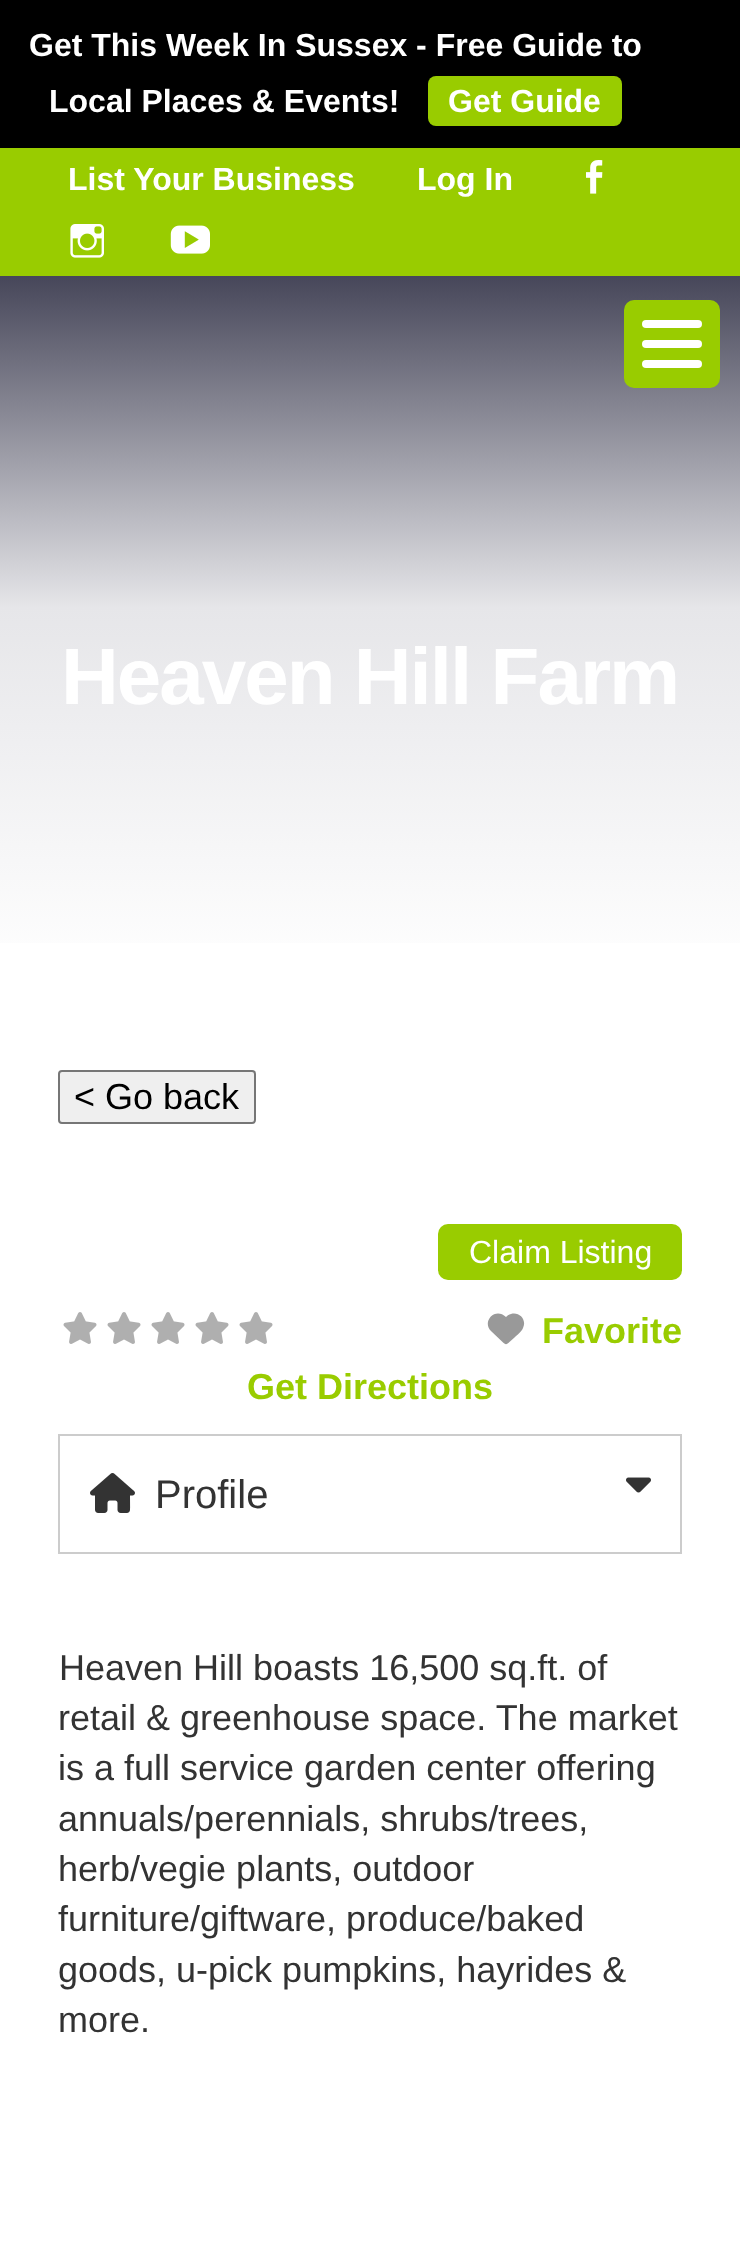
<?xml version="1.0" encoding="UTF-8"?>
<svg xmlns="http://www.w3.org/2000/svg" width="740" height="2251">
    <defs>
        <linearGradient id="g1" gradientUnits="userSpaceOnUse" x1="370" y1="236" x2="370" y2="980"><stop offset="0" stop-color="#333348"/><stop offset="0.5" stop-color="#E6E6E9"/><stop offset="1" stop-color="#FFFFFF"/></linearGradient>
    </defs>
    <rect width="100%" height="100%" fill="#FFFFFF"/>
    <rect x="0" y="0" width="740" height="148" fill="#000000"/>
    <text x="29" y="56" font-family="Liberation Sans" font-size="32" font-weight="700" fill="#FFFFFF">Get This Week In Sussex - Free Guide to</text>
    <text x="49" y="112" font-family="Liberation Sans" font-size="32" font-weight="700" fill="#FFFFFF">Local Places &amp; Events!</text>
    <rect x="428" y="76" width="194" height="50" rx="8" fill="#99CC00"/>
    <text x="448" y="112" font-family="Liberation Sans" font-size="32" font-weight="700" fill="#FFFFFF">Get Guide</text>
    <rect x="0" y="148" width="740" height="128" fill="#99CC00"/>
    <text x="68" y="190" font-family="Liberation Sans" font-size="32" font-weight="700" fill="#FFFFFF">List Your Business</text>
    <text x="417" y="190" font-family="Liberation Sans" font-size="32" font-weight="700" fill="#FFFFFF">Log In</text>
    <image x="586" y="160" width="17" height="34" href="img_01.png"/>
    <image x="70" y="224" width="34" height="34" href="img_02.png"/>
    <image x="170" y="225" width="40" height="29" href="img_03.png"/>
    <rect x="0" y="276" width="740" height="667" fill="url(#g1)"/>
    <rect x="624" y="300" width="96" height="88" rx="10" fill="#99CC00"/>
    <rect x="642" y="320" width="60" height="8" rx="4" fill="#FFFFFF"/>
    <rect x="642" y="340" width="60" height="8" rx="4" fill="#FFFFFF"/>
    <rect x="642" y="360" width="60" height="8" rx="4" fill="#FFFFFF"/>
    <text x="61" y="704" font-family="Liberation Sans" font-size="80" font-weight="700" letter-spacing="-2" fill="#FFFFFF">Heaven Hill Farm</text>
    <rect x="59" y="1071" width="196" height="52" rx="3" fill="#EFEFEF" stroke="#767676" stroke-width="2"/>
    <text x="74" y="1109" font-family="Liberation Sans" font-size="36" fill="#000000">&lt; Go back</text>
    <rect x="438" y="1224" width="244" height="56" rx="10" fill="#99CC00"/>
    <text x="469" y="1263" font-family="Liberation Sans" font-size="32" fill="#FFFFFF">Claim Listing</text>
    <image x="63" y="1312" width="34" height="32" href="img_04.png"/>
    <image x="107" y="1312" width="34" height="32" href="img_04.png"/>
    <image x="151" y="1312" width="34" height="32" href="img_04.png"/>
    <image x="195" y="1312" width="34" height="32" href="img_04.png"/>
    <image x="239" y="1312" width="34" height="32" href="img_04.png"/>
    <path d="M 491.5 1331.5 L 504 1343.5 L 491.5 1331.5 L 502 1341.5 C 506 1345 506 1345 510 1341.5 L 514.5 1337.5 C 517 1335 521.5 1332 523 1328 C 528 1317.5 515 1308 506 1317 C 495 1306.5 481 1322 491.5 1331.5 Z" fill="#999999"/>
    <text x="542" y="1343" font-family="Liberation Sans" font-size="36" font-weight="700" fill="#99CC00">Favorite</text>
    <text x="247" y="1399" font-family="Liberation Sans" font-size="36" font-weight="700" fill="#99CC00">Get Directions</text>
    <rect x="59" y="1435" width="622" height="118" fill="none" stroke="#CCCCCC" stroke-width="2"/>
    <image x="90" y="1473" width="45" height="40" href="img_05.png"/>
    <text x="155" y="1508" font-family="Liberation Sans" font-size="40" fill="#333333">Profile</text>
    <image x="626" y="1477" width="25" height="16" href="img_06.png"/>
    <text x="59" y="1680" font-family="Liberation Sans" font-size="36" fill="#333333">Heaven Hill boasts 16,500 sq.ft. of</text>
    <text font-family="Liberation Sans" font-size="36" fill="#333333">
        <tspan x="58" y="1730">retail &amp; greenhouse space. The market</tspan>
        <tspan x="58" y="1780">is a full service garden center offering</tspan>
        <tspan x="58" y="1831">annuals/perennials, shrubs/trees,</tspan>
        <tspan x="58" y="1881">herb/vegie plants, outdoor</tspan>
        <tspan x="58" y="1931">furniture/giftware, produce/baked</tspan>
        <tspan x="58" y="1982">goods, u-pick pumpkins, hayrides &amp;</tspan>
        <tspan x="58" y="2032">more.</tspan>
    </text>
</svg>
